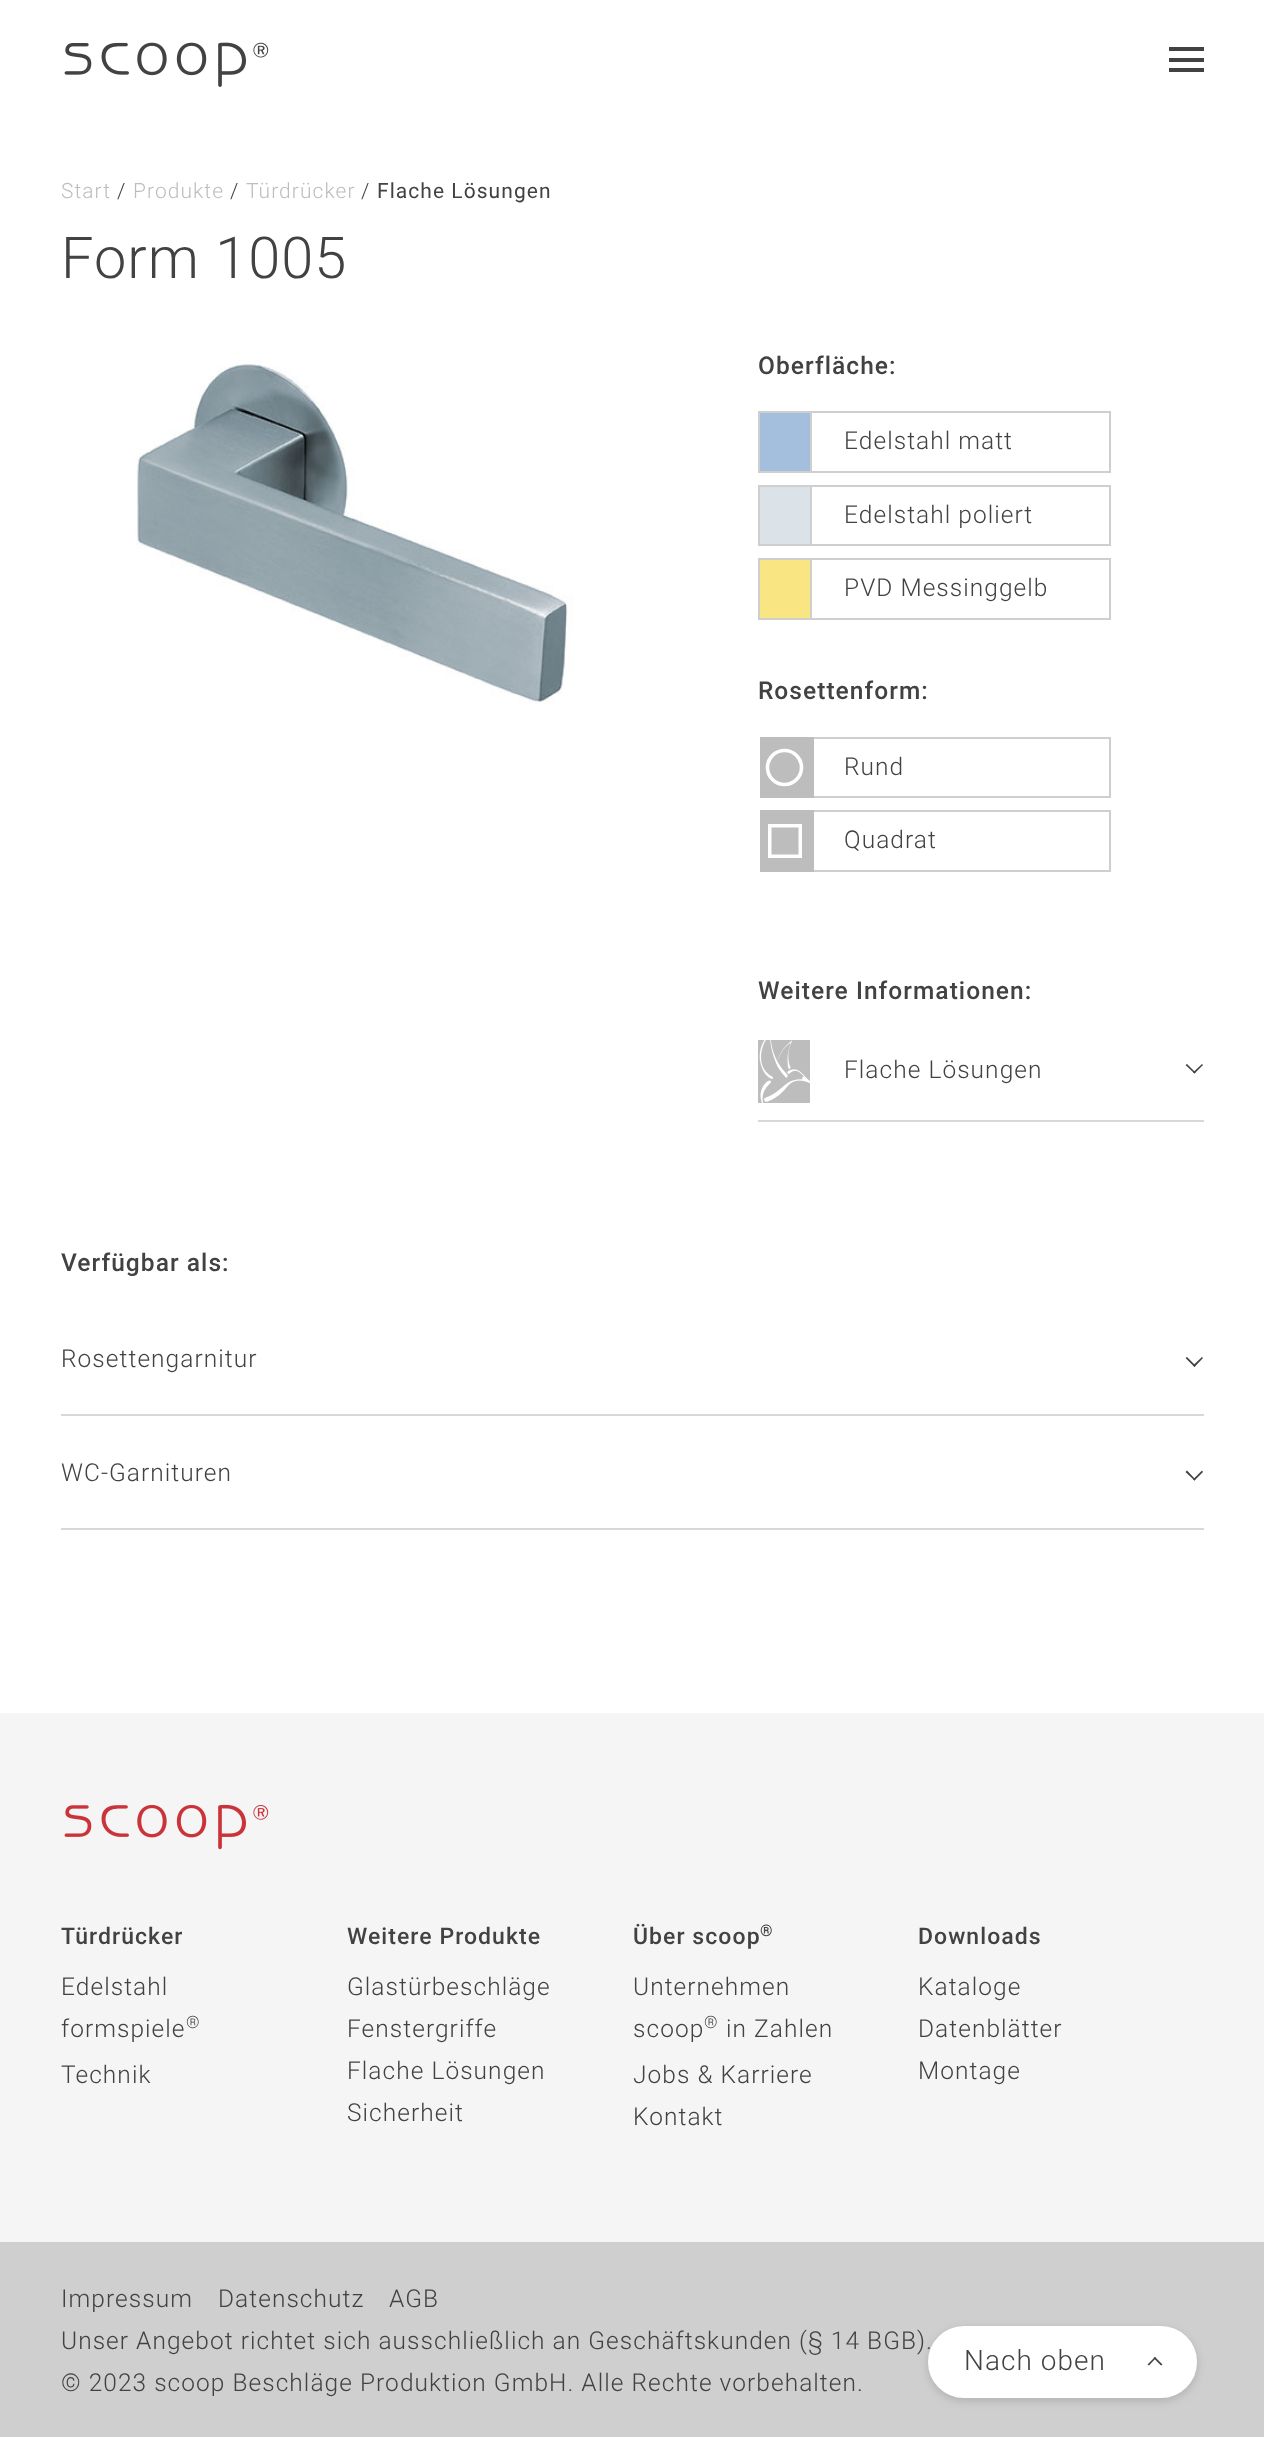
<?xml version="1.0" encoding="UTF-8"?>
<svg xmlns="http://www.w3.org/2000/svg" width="1264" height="2437">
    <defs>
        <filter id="blur1" x="-50%" y="-200%" width="200%" height="500%"><feGaussianBlur stdDeviation="5"/></filter>
    </defs>
    <rect width="100%" height="100%" fill="#FFFFFF"/>
    <image x="64" y="42" width="205" height="45" href="img_01.png"/>
    <rect x="1169" y="47" width="35" height="4" fill="#424242"/>
    <rect x="1169" y="58" width="35" height="4" fill="#424242"/>
    <rect x="1169" y="68" width="35" height="4" fill="#424242"/>
    <text x="61" y="198" font-family="Roboto" font-size="21" font-weight="300" letter-spacing="1.05" fill="#BDBDBD">Start</text>
    <text x="117" y="198" font-family="Roboto" font-size="21" font-weight="300" letter-spacing="1.05" fill="#424242">/</text>
    <text x="133" y="198" font-family="Roboto" font-size="21" font-weight="300" letter-spacing="1.05" fill="#BDBDBD">Produkte</text>
    <text x="230" y="198" font-family="Roboto" font-size="21" font-weight="300" letter-spacing="1.05" fill="#424242">/</text>
    <text x="246" y="198" font-family="Roboto" font-size="21" font-weight="300" letter-spacing="1.05" fill="#BDBDBD">Türdrücker</text>
    <text x="361" y="198" font-family="Roboto" font-size="21" font-weight="300" letter-spacing="1.05" fill="#424242">/</text>
    <text x="377" y="198" font-family="Roboto" font-size="21" letter-spacing="1.05" fill="#424242">Flache Lösungen</text>
    <text x="61" y="278" font-family="Roboto" font-size="57.75" font-weight="300" letter-spacing="1.05" fill="#424242">Form 1005</text>
    <image x="135" y="360" width="438" height="344" href="img_02.png"/>
    <text x="758" y="374" font-family="Roboto" font-size="24.5" font-weight="500" letter-spacing="1.05" fill="#424242">Oberfläche:</text>
    <rect x="760" y="413" width="50" height="58" fill="#A4BFDE"/>
    <rect x="758" y="411" width="52" height="2" fill="#CFCFCF"/>
    <rect x="758" y="471" width="52" height="2" fill="#CFCFCF"/>
    <rect x="758" y="411" width="2" height="62" fill="#CFCFCF"/>
    <rect x="811" y="412" width="299" height="60" fill="none" stroke="#CFCFCF" stroke-width="2"/>
    <text x="844" y="449" font-family="Roboto" font-size="24.5" font-weight="300" letter-spacing="1.05" fill="#424242">Edelstahl matt</text>
    <rect x="760" y="487" width="50" height="57" fill="#DBE3E8"/>
    <rect x="758" y="485" width="52" height="2" fill="#CFCFCF"/>
    <rect x="758" y="544" width="52" height="2" fill="#CFCFCF"/>
    <rect x="758" y="485" width="2" height="61" fill="#CFCFCF"/>
    <rect x="811" y="486" width="299" height="59" fill="none" stroke="#CFCFCF" stroke-width="2"/>
    <text x="844" y="523" font-family="Roboto" font-size="24.5" font-weight="300" letter-spacing="1.05" fill="#424242">Edelstahl poliert</text>
    <rect x="760" y="560" width="50" height="58" fill="#FAE583"/>
    <rect x="758" y="558" width="52" height="2" fill="#CFCFCF"/>
    <rect x="758" y="618" width="52" height="2" fill="#CFCFCF"/>
    <rect x="758" y="558" width="2" height="62" fill="#CFCFCF"/>
    <rect x="811" y="559" width="299" height="60" fill="none" stroke="#CFCFCF" stroke-width="2"/>
    <text x="844" y="596" font-family="Roboto" font-size="24.5" font-weight="300" letter-spacing="1.05" fill="#424242">PVD Messinggelb</text>
    <text x="758" y="699" font-family="Roboto" font-size="24.5" font-weight="500" letter-spacing="1.05" fill="#424242">Rosettenform:</text>
    <rect x="811" y="738" width="299" height="59" fill="none" stroke="#CFCFCF" stroke-width="2"/>
    <rect x="760" y="737" width="54" height="61" fill="#BDBDBD"/>
    <circle cx="784.5" cy="767.5" r="17" fill="none" stroke="#FFFFFF" stroke-width="3.6"/>
    <text x="844" y="775" font-family="Roboto" font-size="24.5" font-weight="300" letter-spacing="1.05" fill="#424242">Rund</text>
    <rect x="811" y="811" width="299" height="60" fill="none" stroke="#CFCFCF" stroke-width="2"/>
    <rect x="760" y="810" width="54" height="62" fill="#BDBDBD"/>
    <rect x="769.75" y="825.75" width="30.5" height="30.5" fill="none" stroke="#FFFFFF" stroke-width="3.5"/>
    <text x="844" y="848" font-family="Roboto" font-size="24.5" font-weight="300" letter-spacing="1.05" fill="#424242">Quadrat</text>
    <text x="758" y="999" font-family="Roboto" font-size="24.5" font-weight="500" letter-spacing="1.05" fill="#424242">Weitere Informationen:</text>
    <rect x="758" y="1120" width="446" height="2" fill="#D8D8D8"/>
    <image x="758" y="1040" width="52" height="63" href="img_03.png"/>
    <text x="844" y="1078" font-family="Roboto" font-size="24.5" font-weight="300" letter-spacing="1.05" fill="#424242">Flache Lösungen</text>
    <path d="M 1202 1064 L 1203 1065 L 1194.5 1073.5 L 1193 1072.5 Z" fill="#424242"/>
    <path d="M 1187 1064 L 1195.5 1072.5 L 1194.5 1073.5 L 1185.5 1065 Z" fill="#424242"/>
    <text x="61" y="1271" font-family="Roboto" font-size="24.5" font-weight="500" letter-spacing="1.05" fill="#424242">Verfügbar als:</text>
    <rect x="61" y="1414" width="1143" height="2" fill="#D8D8D8"/>
    <text x="61" y="1367" font-family="Roboto" font-size="24.5" font-weight="300" letter-spacing="1.05" fill="#424242">Rosettengarnitur</text>
    <path d="M 1202 1357 L 1203 1358 L 1194.5 1367 L 1193 1365.5 Z" fill="#424242"/>
    <path d="M 1187 1357 L 1195.5 1365.5 L 1194.5 1367 L 1185.5 1358 Z" fill="#424242"/>
    <rect x="61" y="1528" width="1143" height="2" fill="#D8D8D8"/>
    <text x="61" y="1481" font-family="Roboto" font-size="24.5" font-weight="300" letter-spacing="1.05" fill="#424242">WC-Garnituren</text>
    <path d="M 1202 1470.5 L 1203 1472 L 1194.5 1480.5 L 1193 1479.5 Z" fill="#424242"/>
    <path d="M 1187 1470.5 L 1195.5 1479.5 L 1194.5 1480.5 L 1185.5 1472 Z" fill="#424242"/>
    <rect x="0" y="1713" width="1264" height="529" fill="#F5F5F5"/>
    <image x="64" y="1804" width="205" height="46" href="img_04.png"/>
    <text x="61" y="1944" font-family="Roboto" font-size="23" font-weight="500" letter-spacing="1.05" fill="#424242">Türdrücker</text>
    <text font-family="Roboto" font-size="24.5" font-weight="300" letter-spacing="1.05" fill="#424242">
        <tspan x="61" y="1995">Edelstahl</tspan>
        <tspan x="61" y="2037">formspiele</tspan>
    </text>
    <text x="186" y="2028" font-family="Roboto" font-size="17" font-weight="300" letter-spacing="1.05" fill="#424242">®</text>
    <text x="61" y="2083" font-family="Roboto" font-size="24.5" font-weight="300" letter-spacing="1.05" fill="#424242">Technik</text>
    <text x="347" y="1944" font-family="Roboto" font-size="23" font-weight="500" letter-spacing="1.05" fill="#424242">Weitere Produkte</text>
    <text font-family="Roboto" font-size="24.5" font-weight="300" letter-spacing="1.05" fill="#424242">
        <tspan x="347" y="1995">Glastürbeschläge</tspan>
        <tspan x="347" y="2037">Fenstergriffe</tspan>
        <tspan x="347" y="2079">Flache Lösungen</tspan>
        <tspan x="347" y="2121">Sicherheit</tspan>
    </text>
    <text x="633" y="1944" font-family="Roboto" font-size="23" font-weight="500" letter-spacing="1.05" fill="#424242">Über scoop</text>
    <text x="760" y="1936" font-family="Roboto" font-size="16" font-weight="500" letter-spacing="1.05" fill="#424242">®</text>
    <text font-family="Roboto" font-size="24.5" font-weight="300" letter-spacing="1.05" fill="#424242">
        <tspan x="633" y="1995">Unternehmen</tspan>
        <tspan x="633" y="2037">scoop</tspan>
    </text>
    <text x="704" y="2028" font-family="Roboto" font-size="17" font-weight="300" letter-spacing="1.05" fill="#424242">®</text>
    <text x="726" y="2037" font-family="Roboto" font-size="24.5" font-weight="300" letter-spacing="1.05" fill="#424242">in Zahlen</text>
    <text font-family="Roboto" font-size="24.5" font-weight="300" letter-spacing="1.05" fill="#424242">
        <tspan x="633" y="2083">Jobs &amp; Karriere</tspan>
        <tspan x="633" y="2125">Kontakt</tspan>
    </text>
    <text x="918" y="1944" font-family="Roboto" font-size="23" font-weight="500" letter-spacing="1.05" fill="#424242">Downloads</text>
    <text font-family="Roboto" font-size="24.5" font-weight="300" letter-spacing="1.05" fill="#424242">
        <tspan x="918" y="1995">Kataloge</tspan>
        <tspan x="918" y="2037">Datenblätter</tspan>
        <tspan x="918" y="2079">Montage</tspan>
    </text>
    <rect x="0" y="2242" width="1264" height="195" fill="#CFCFCF"/>
    <text x="61" y="2307" font-family="Roboto" font-size="24.5" font-weight="300" letter-spacing="1.05" fill="#424242">Impressum</text>
    <text x="218" y="2307" font-family="Roboto" font-size="24.5" font-weight="300" letter-spacing="1.05" fill="#424242">Datenschutz</text>
    <text x="389" y="2307" font-family="Roboto" font-size="24.5" font-weight="300" letter-spacing="1.05" fill="#424242">AGB</text>
    <text font-family="Roboto" font-size="24.5" font-weight="300" letter-spacing="1.05" fill="#424242">
        <tspan x="61" y="2349">Unser Angebot richtet sich ausschließlich an Geschäftskunden (§ 14 BGB).</tspan>
        <tspan x="61" y="2391">© 2023 scoop Beschläge Produktion GmbH. Alle Rechte vorbehalten.</tspan>
    </text>
    <rect x="928" y="2329" width="269" height="72" rx="36" fill="#000000" fill-opacity="0.15" filter="url(#blur1)"/>
    <rect x="929" y="2327" width="267" height="70" rx="35" fill="#FFFFFF" stroke="#FFFFFF" stroke-width="2"/>
    <text x="964" y="2370" font-family="Roboto" font-size="28" font-weight="300" letter-spacing="1.05" fill="#424242">Nach oben</text>
    <path d="M 1147.5 2364.5 L 1155 2357 L 1156 2358 L 1149 2365.5 Z" fill="#424242"/>
    <path d="M 1153.5 2358 L 1155 2357 L 1162.5 2364.5 L 1161 2365.5 Z" fill="#424242"/>
</svg>
